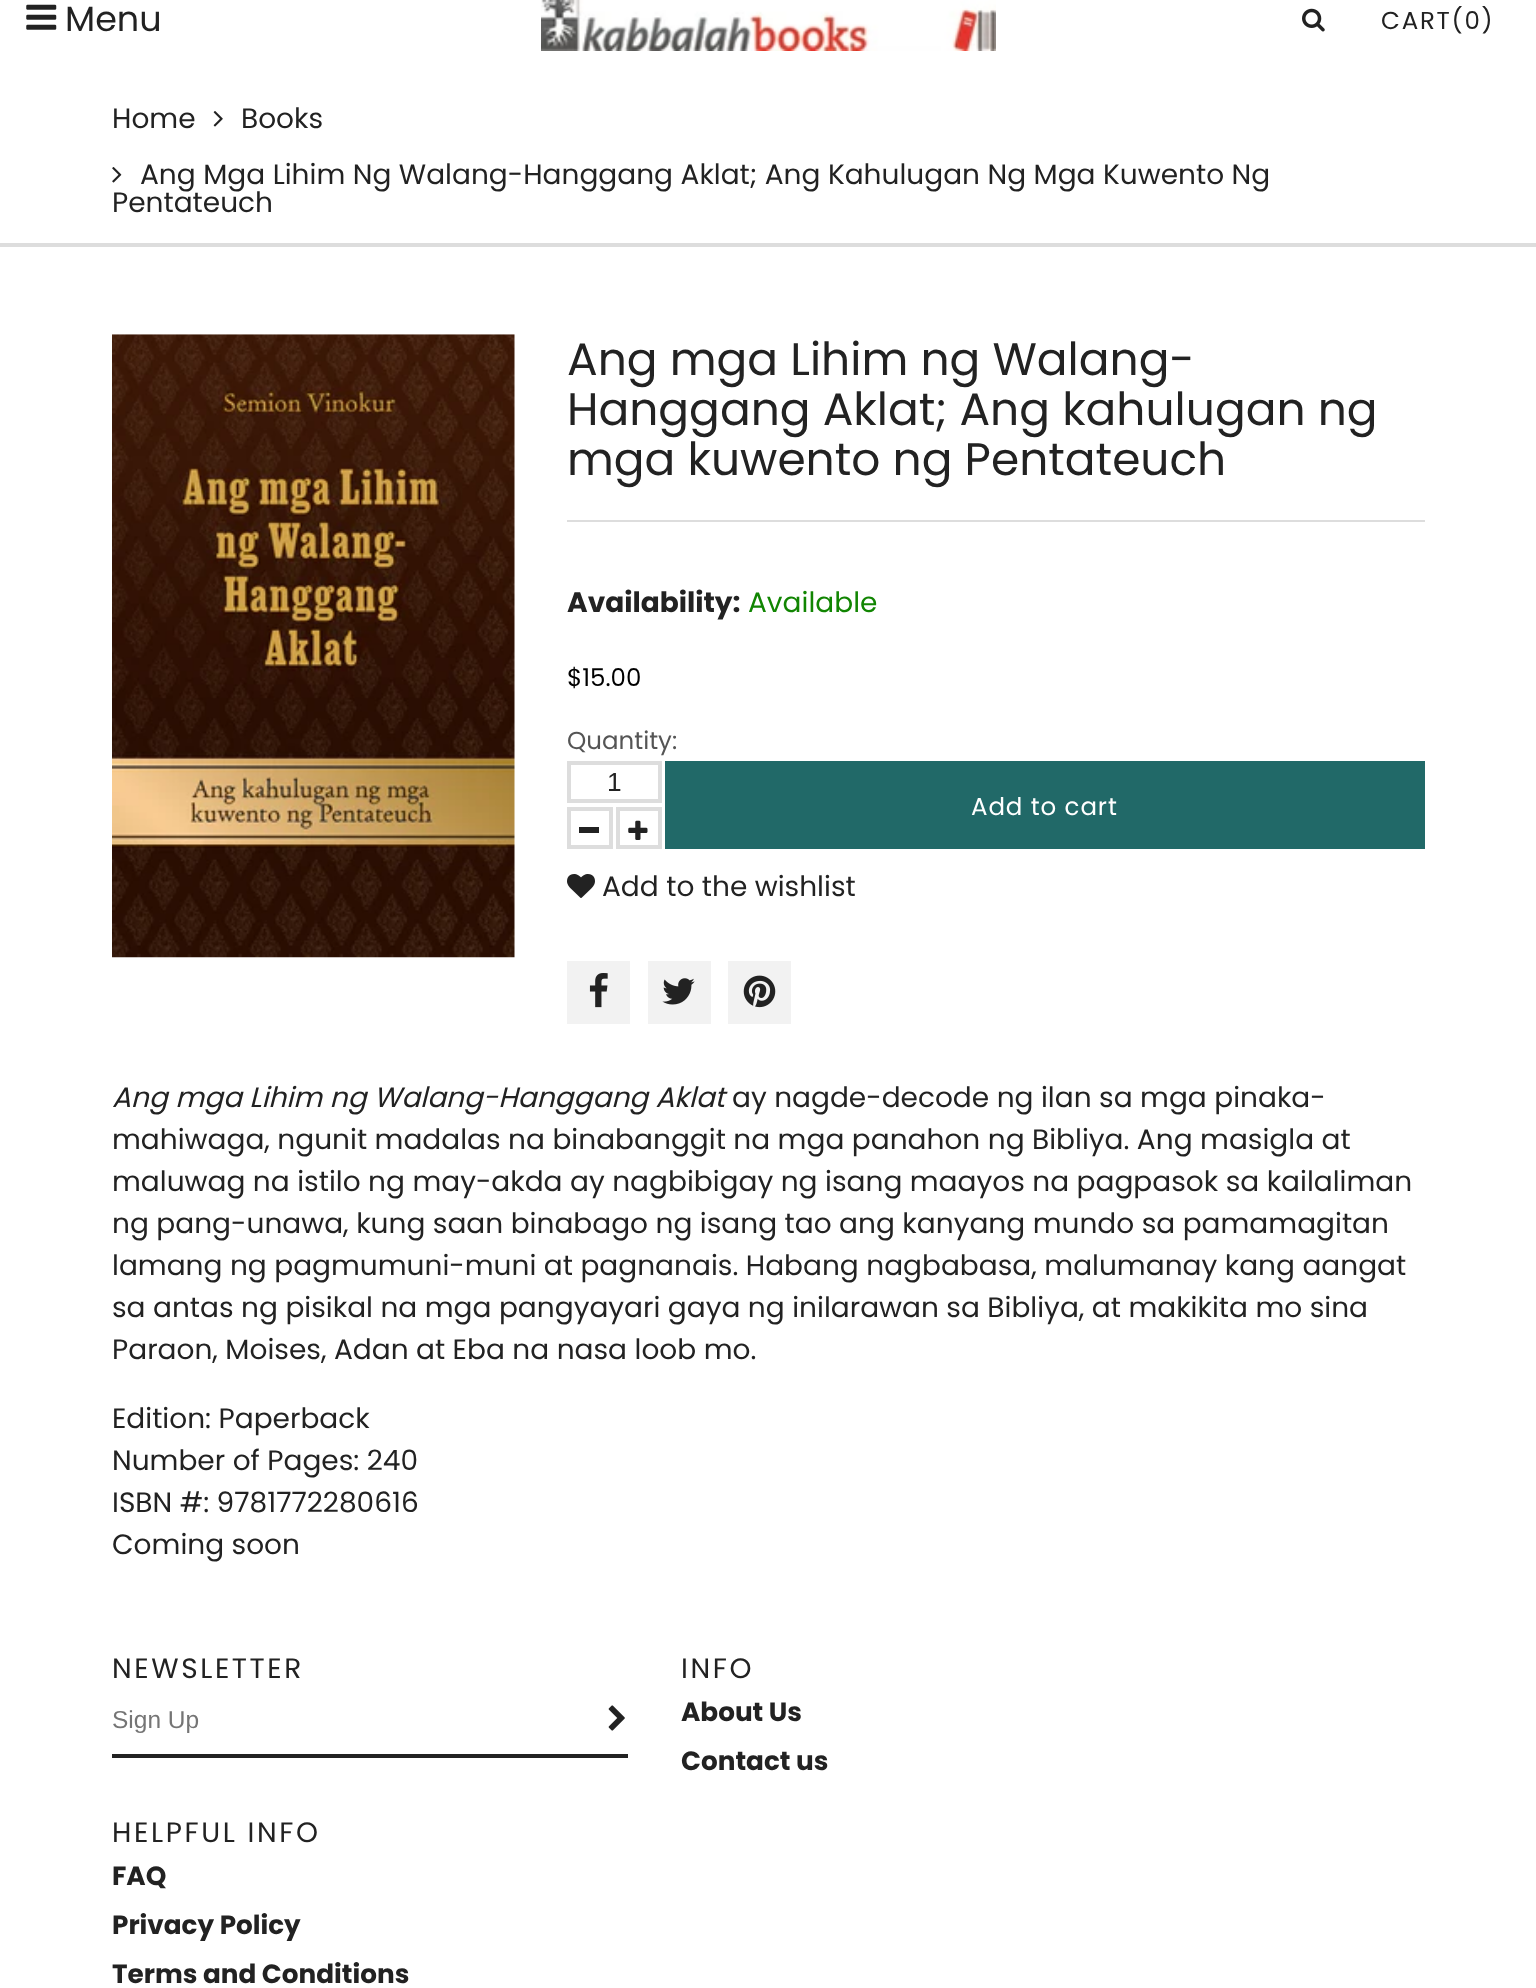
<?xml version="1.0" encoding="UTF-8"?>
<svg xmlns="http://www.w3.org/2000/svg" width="1536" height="1988">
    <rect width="100%" height="100%" fill="#FFFFFF"/>
    <image x="26" y="4" width="31" height="26" href="img_01.png"/>
    <text x="65" y="31" font-family="Poppins" font-size="35" fill="#222222">Menu</text>
    <image x="541" y="0" width="455" height="51" href="img_02.png"/>
    <image x="1302" y="8" width="23" height="24" href="img_03.png"/>
    <text x="1381" y="29" font-family="Poppins" font-size="24.5" letter-spacing="1.75" fill="#222222">CART(0)</text>
    <rect x="0" y="243" width="1536" height="4" fill="#DDDDDD"/>
    <text x="112" y="128" font-family="Poppins" font-size="28" fill="#222222">Home</text>
    <image x="213" y="111" width="10" height="16" href="img_04.png"/>
    <text x="241" y="128" font-family="Poppins" font-size="28" fill="#222222">Books</text>
    <image x="112" y="167" width="10" height="16" href="img_05.png"/>
    <text x="140" y="184" font-family="Poppins" font-size="28" fill="#222222">Ang Mga Lihim Ng Walang-Hanggang Aklat; Ang Kahulugan Ng Mga Kuwento Ng</text>
    <text x="112" y="212" font-family="Poppins" font-size="28" fill="#222222">Pentateuch</text>
    <image x="112" y="334" width="403" height="624" href="img_06.png"/>
    <text font-family="Poppins" font-size="45.5" fill="#222222">
        <tspan x="567" y="375">Ang mga Lihim ng Walang-</tspan>
        <tspan x="567" y="425">Hanggang Aklat; Ang kahulugan ng</tspan>
        <tspan x="567" y="475">mga kuwento ng Pentateuch</tspan>
    </text>
    <rect x="567" y="520" width="858" height="2" fill="#DDDDDD"/>
    <text x="567" y="612" font-family="Poppins" font-size="28" font-weight="700" fill="#222222">Availability:</text>
    <text x="748" y="612" font-family="Poppins" font-size="28" fill="#118502">Available</text>
    <text x="567" y="686" font-family="Poppins" font-size="24.5" fill="#000000">$15.00</text>
    <text x="567" y="749" font-family="Poppins" font-size="24.5" fill="#555555">Quantity:</text>
    <rect x="569" y="763" width="91" height="38" fill="none" stroke="#DDDDDD" stroke-width="4"/>
    <text x="607" y="791" font-family="Liberation Sans" font-size="26.25" fill="#222222">1</text>
    <rect x="569" y="809" width="42" height="38" fill="none" stroke="#DDDDDD" stroke-width="4"/>
    <rect x="579" y="827" width="20" height="6" fill="#222222"/>
    <rect x="618" y="809" width="42" height="38" fill="none" stroke="#DDDDDD" stroke-width="4"/>
    <image x="628" y="820" width="20" height="20" href="img_07.png"/>
    <rect x="665" y="761" width="760" height="88" fill="#216968"/>
    <text x="971" y="815" font-family="Poppins" font-size="24.5" letter-spacing="0.9" fill="#FFFFFF">Add to cart</text>
    <image x="567" y="874" width="28" height="24" href="img_08.png"/>
    <text x="602" y="896" font-family="Poppins" font-size="28" fill="#222222">Add to the wishlist</text>
    <rect x="567" y="961" width="63" height="63" fill="#F2F2F2"/>
    <image x="589" y="973" width="19" height="35" href="img_09.png"/>
    <rect x="648" y="961" width="63" height="63" fill="#F2F2F2"/>
    <image x="662" y="978" width="33" height="27" href="img_10.png"/>
    <rect x="728" y="961" width="63" height="63" fill="#F2F2F2"/>
    <image x="743" y="975" width="33" height="33" href="img_11.png"/>
    <text x="112" y="1107" font-family="Poppins" font-size="28" font-style="italic" fill="#222222">Ang mga Lihim ng Walang-Hanggang Aklat</text>
    <text x="732" y="1107" font-family="Poppins" font-size="28" fill="#222222">ay nagde-decode ng ilan sa mga pinaka-</text>
    <text font-family="Poppins" font-size="28" fill="#222222">
        <tspan x="112" y="1149">mahiwaga, ngunit madalas na binabanggit na mga panahon ng Bibliya. Ang masigla at</tspan>
        <tspan x="112" y="1191">maluwag na istilo ng may-akda ay nagbibigay ng isang maayos na pagpasok sa kailaliman</tspan>
        <tspan x="112" y="1233">ng pang-unawa, kung saan binabago ng isang tao ang kanyang mundo sa pamamagitan</tspan>
        <tspan x="112" y="1275">lamang ng pagmumuni-muni at pagnanais. Habang nagbabasa, malumanay kang aangat</tspan>
        <tspan x="112" y="1317">sa antas ng pisikal na mga pangyayari gaya ng inilarawan sa Bibliya, at makikita mo sina</tspan>
        <tspan x="112" y="1359">Paraon, Moises, Adan at Eba na nasa loob mo.</tspan>
    </text>
    <text font-family="Poppins" font-size="28" fill="#222222">
        <tspan x="112" y="1428">Edition: Paperback</tspan>
        <tspan x="112" y="1470">Number of Pages: 240</tspan>
        <tspan x="112" y="1512">ISBN #: 9781772280616</tspan>
        <tspan x="112" y="1554">Coming soon</tspan>
    </text>
    <text x="112" y="1678" font-family="Poppins" font-size="28" letter-spacing="2.6" fill="#222222">NEWSLETTER</text>
    <rect x="112" y="1754" width="516" height="4" fill="#222222"/>
    <text x="112" y="1728" font-family="Liberation Sans" font-size="24.5" fill="#757575">Sign Up</text>
    <image x="608" y="1705" width="17" height="26" href="img_12.png"/>
    <text x="681" y="1678" font-family="Poppins" font-size="28" letter-spacing="2.6" fill="#222222">INFO</text>
    <text font-family="Poppins" font-size="26.25" font-weight="700" fill="#222222">
        <tspan x="681" y="1721">About Us</tspan>
        <tspan x="681" y="1770">Contact us</tspan>
    </text>
    <text x="112" y="1842" font-family="Poppins" font-size="28" letter-spacing="2.6" fill="#222222">HELPFUL INFO</text>
    <text font-family="Poppins" font-size="26.25" font-weight="700" fill="#222222">
        <tspan x="112" y="1885">FAQ</tspan>
        <tspan x="112" y="1934">Privacy Policy</tspan>
        <tspan x="112" y="1983">Terms and Conditions</tspan>
    </text>
</svg>
